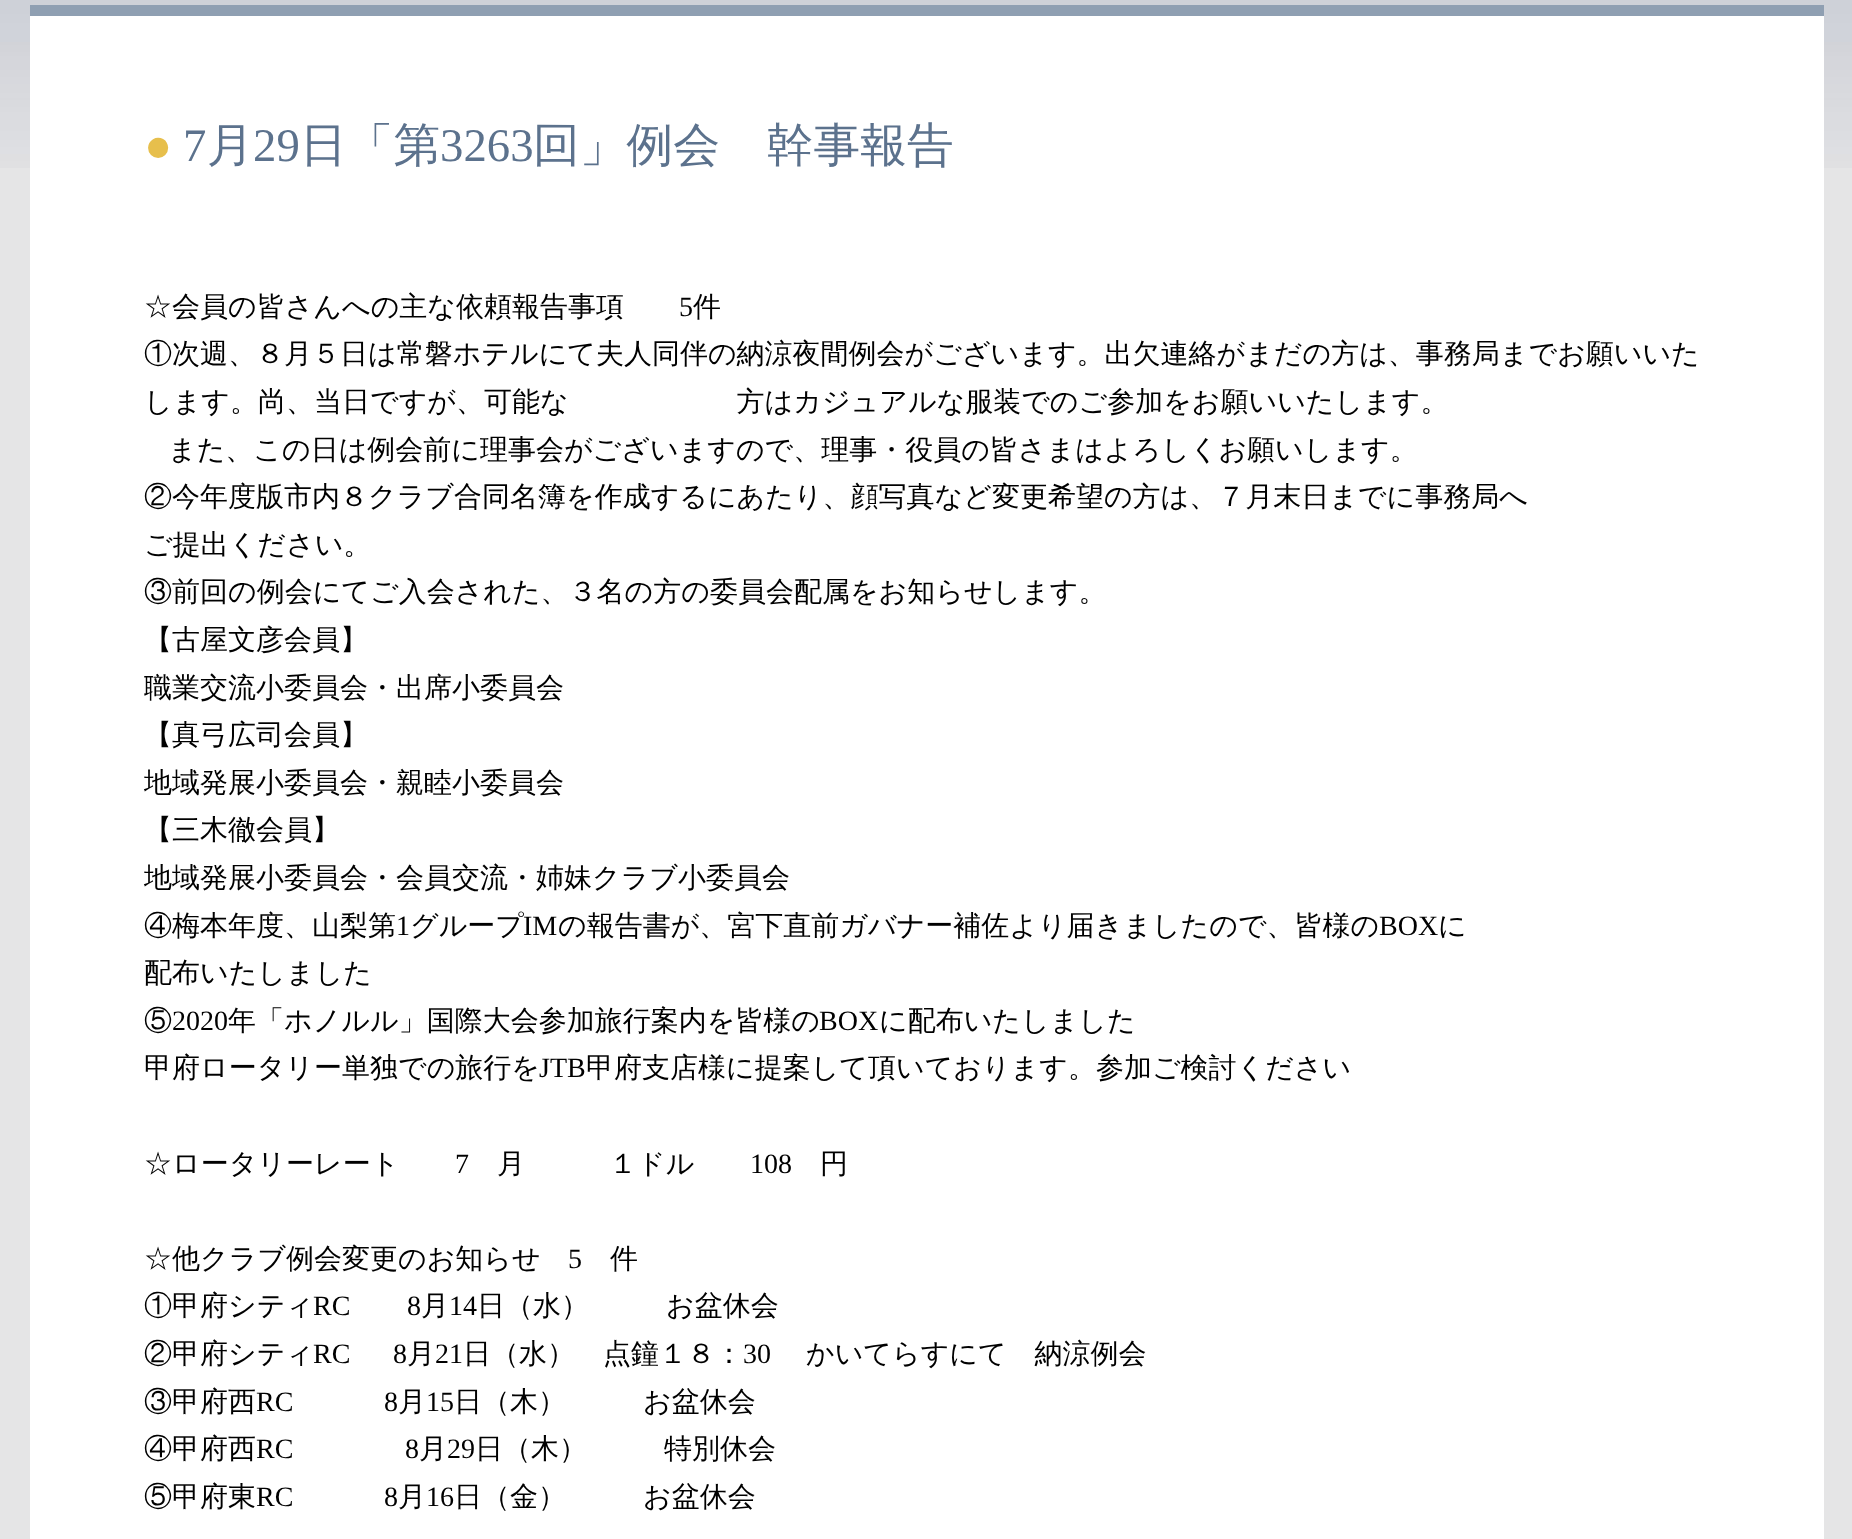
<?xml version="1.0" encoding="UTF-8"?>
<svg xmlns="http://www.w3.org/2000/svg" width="1852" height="1539">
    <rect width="100%" height="100%" fill="#E5E5E6"/>
    <image x="0" y="0" width="1852" height="168" href="img_01.png"/>
    <rect x="30" y="16" width="1794" height="1523" fill="#FFFFFF"/>
    <rect x="30" y="5" width="1794" height="11" fill="#8F9FB2"/>
    <text x="144" y="161" font-family="Liberation Serif" font-size="46.75" fill="#E7BF4C">●</text>
    <text x="183" y="161" font-family="Liberation Serif" font-size="46.75" fill="#5C728D">7</text>
    <text x="207" y="161" font-family="WenQuanYi Zen Hei" font-size="46.75" font-weight="500" fill="#5C728D">月</text>
    <text x="253" y="161" font-family="Liberation Serif" font-size="46.75" fill="#5C728D">29</text>
    <text x="300" y="161" font-family="WenQuanYi Zen Hei" font-size="46.75" font-weight="500" fill="#5C728D">日「第</text>
    <text x="440" y="161" font-family="Liberation Serif" font-size="46.75" fill="#5C728D">3263</text>
    <text x="533" y="161" font-family="WenQuanYi Zen Hei" font-size="46.75" font-weight="500" fill="#5C728D">回」例会　幹事報告</text>
    <text x="144" y="316" font-family="WenQuanYi Zen Hei" font-size="28" font-weight="500" fill="#000000">☆会員の皆さんへの主な依頼報告事項</text>
    <text x="679" y="316" font-family="Liberation Serif" font-size="28" fill="#000000">5</text>
    <text x="693" y="316" font-family="WenQuanYi Zen Hei" font-size="28" font-weight="500" fill="#000000">件</text>
    <text font-family="WenQuanYi Zen Hei" font-size="28" font-weight="500" fill="#000000">
        <tspan x="144" y="363">①次週、８月５日は常磐ホテルにて夫人同伴の納涼夜間例会がございます。出欠連絡がまだの方は、事務局までお願いいた</tspan>
        <tspan x="144" y="411">します。尚、当日ですが、可能な　　　　　　方はカジュアルな服装でのご参加をお願いいたします。</tspan>
    </text>
    <text x="168" y="459" font-family="WenQuanYi Zen Hei" font-size="28" font-weight="500" fill="#000000">また、この日は例会前に理事会がございますので、理事・役員の皆さまはよろしくお願いします。</text>
    <text font-family="WenQuanYi Zen Hei" font-size="28" font-weight="500" fill="#000000">
        <tspan x="144" y="506">②今年度版市内８クラブ合同名簿を作成するにあたり、顔写真など変更希望の方は、７月末日までに事務局へ</tspan>
        <tspan x="144" y="554">ご提出ください。</tspan>
        <tspan x="144" y="601">③前回の例会にてご入会された、３名の方の委員会配属をお知らせします。</tspan>
        <tspan x="144" y="649">【古屋文彦会員】</tspan>
        <tspan x="144" y="697">職業交流小委員会・出席小委員会</tspan>
        <tspan x="144" y="744">【真弓広司会員】</tspan>
        <tspan x="144" y="792">地域発展小委員会・親睦小委員会</tspan>
        <tspan x="144" y="839">【三木徹会員】</tspan>
        <tspan x="144" y="887">地域発展小委員会・会員交流・姉妹クラブ小委員会</tspan>
        <tspan x="144" y="935">④梅本年度、山梨第</tspan>
    </text>
    <text x="396" y="935" font-family="Liberation Serif" font-size="28" fill="#000000">1</text>
    <text x="410" y="935" font-family="WenQuanYi Zen Hei" font-size="28" font-weight="500" fill="#000000">グループ</text>
    <text x="523" y="935" font-family="Liberation Serif" font-size="28" fill="#000000">IM</text>
    <text x="558" y="935" font-family="WenQuanYi Zen Hei" font-size="28" font-weight="500" fill="#000000">の報告書が、宮下直前ガバナー補佐より届きましたので、皆様の</text>
    <text x="1379" y="935" font-family="Liberation Serif" font-size="28" fill="#000000">BOX</text>
    <text x="1438" y="935" font-family="WenQuanYi Zen Hei" font-size="28" font-weight="500" fill="#000000">に</text>
    <text font-family="WenQuanYi Zen Hei" font-size="28" font-weight="500" fill="#000000">
        <tspan x="144" y="982">配布いたしました</tspan>
        <tspan x="144" y="1030">⑤</tspan>
    </text>
    <text x="172" y="1030" font-family="Liberation Serif" font-size="28" fill="#000000">2020</text>
    <text x="228" y="1030" font-family="WenQuanYi Zen Hei" font-size="28" font-weight="500" fill="#000000">年「ホノルル」国際大会参加旅行案内を皆様の</text>
    <text x="819" y="1030" font-family="Liberation Serif" font-size="28" fill="#000000">BOX</text>
    <text x="879" y="1030" font-family="WenQuanYi Zen Hei" font-size="28" font-weight="500" fill="#000000">に配布いたしました</text>
    <text x="144" y="1077" font-family="WenQuanYi Zen Hei" font-size="28" font-weight="500" fill="#000000">甲府ロータリー単独での旅行を</text>
    <text x="539" y="1077" font-family="Liberation Serif" font-size="28" fill="#000000">JTB</text>
    <text x="586" y="1077" font-family="WenQuanYi Zen Hei" font-size="28" font-weight="500" fill="#000000">甲府支店様に提案して頂いております。参加ご検討ください</text>
    <text x="144" y="1173" font-family="WenQuanYi Zen Hei" font-size="28" font-weight="500" fill="#000000">☆ロータリーレート</text>
    <text x="455" y="1173" font-family="Liberation Serif" font-size="28" fill="#000000">7</text>
    <text x="497" y="1173" font-family="WenQuanYi Zen Hei" font-size="28" font-weight="500" fill="#000000">月　　　１ドル</text>
    <text x="750" y="1173" font-family="Liberation Serif" font-size="28" fill="#000000">108</text>
    <text x="820" y="1173" font-family="WenQuanYi Zen Hei" font-size="28" font-weight="500" fill="#000000">円</text>
    <text x="144" y="1268" font-family="WenQuanYi Zen Hei" font-size="28" font-weight="500" fill="#000000">☆他クラブ例会変更のお知らせ</text>
    <text x="568" y="1268" font-family="Liberation Serif" font-size="28" fill="#000000">5</text>
    <text x="610" y="1268" font-family="WenQuanYi Zen Hei" font-size="28" font-weight="500" fill="#000000">件</text>
    <text x="144" y="1315" font-family="WenQuanYi Zen Hei" font-size="28" font-weight="500" fill="#000000">①甲府シティ</text>
    <text x="313" y="1315" font-family="Liberation Serif" font-size="28" fill="#000000">RC</text>
    <text x="407" y="1315" font-family="Liberation Serif" font-size="28" fill="#000000">8</text>
    <text x="421" y="1315" font-family="WenQuanYi Zen Hei" font-size="28" font-weight="500" fill="#000000">月</text>
    <text x="449" y="1315" font-family="Liberation Serif" font-size="28" fill="#000000">14</text>
    <text x="477" y="1315" font-family="WenQuanYi Zen Hei" font-size="28" font-weight="500" fill="#000000">日（水）</text>
    <text x="666" y="1315" font-family="WenQuanYi Zen Hei" font-size="28" font-weight="500" fill="#000000">お盆休会</text>
    <text x="144" y="1363" font-family="WenQuanYi Zen Hei" font-size="28" font-weight="500" fill="#000000">②甲府シティ</text>
    <text x="313" y="1363" font-family="Liberation Serif" font-size="28" fill="#000000">RC</text>
    <text x="393" y="1363" font-family="Liberation Serif" font-size="28" fill="#000000">8</text>
    <text x="407" y="1363" font-family="WenQuanYi Zen Hei" font-size="28" font-weight="500" fill="#000000">月</text>
    <text x="435" y="1363" font-family="Liberation Serif" font-size="28" fill="#000000">21</text>
    <text x="463" y="1363" font-family="WenQuanYi Zen Hei" font-size="28" font-weight="500" fill="#000000">日（水）　点鐘１８：</text>
    <text x="743" y="1363" font-family="Liberation Serif" font-size="28" fill="#000000">30</text>
    <text x="806" y="1363" font-family="WenQuanYi Zen Hei" font-size="28" font-weight="500" fill="#000000">かいてらすにて　納涼例会</text>
    <text x="144" y="1411" font-family="WenQuanYi Zen Hei" font-size="28" font-weight="500" fill="#000000">③甲府西</text>
    <text x="256" y="1411" font-family="Liberation Serif" font-size="28" fill="#000000">RC</text>
    <text x="384" y="1411" font-family="Liberation Serif" font-size="28" fill="#000000">8</text>
    <text x="398" y="1411" font-family="WenQuanYi Zen Hei" font-size="28" font-weight="500" fill="#000000">月</text>
    <text x="426" y="1411" font-family="Liberation Serif" font-size="28" fill="#000000">15</text>
    <text x="454" y="1411" font-family="WenQuanYi Zen Hei" font-size="28" font-weight="500" fill="#000000">日（木）</text>
    <text x="643" y="1411" font-family="WenQuanYi Zen Hei" font-size="28" font-weight="500" fill="#000000">お盆休会</text>
    <text x="144" y="1458" font-family="WenQuanYi Zen Hei" font-size="28" font-weight="500" fill="#000000">④甲府西</text>
    <text x="256" y="1458" font-family="Liberation Serif" font-size="28" fill="#000000">RC</text>
    <text x="405" y="1458" font-family="Liberation Serif" font-size="28" fill="#000000">8</text>
    <text x="419" y="1458" font-family="WenQuanYi Zen Hei" font-size="28" font-weight="500" fill="#000000">月</text>
    <text x="447" y="1458" font-family="Liberation Serif" font-size="28" fill="#000000">29</text>
    <text x="475" y="1458" font-family="WenQuanYi Zen Hei" font-size="28" font-weight="500" fill="#000000">日（木）</text>
    <text x="664" y="1458" font-family="WenQuanYi Zen Hei" font-size="28" font-weight="500" fill="#000000">特別休会</text>
    <text x="144" y="1506" font-family="WenQuanYi Zen Hei" font-size="28" font-weight="500" fill="#000000">⑤甲府東</text>
    <text x="256" y="1506" font-family="Liberation Serif" font-size="28" fill="#000000">RC</text>
    <text x="384" y="1506" font-family="Liberation Serif" font-size="28" fill="#000000">8</text>
    <text x="398" y="1506" font-family="WenQuanYi Zen Hei" font-size="28" font-weight="500" fill="#000000">月</text>
    <text x="426" y="1506" font-family="Liberation Serif" font-size="28" fill="#000000">16</text>
    <text x="454" y="1506" font-family="WenQuanYi Zen Hei" font-size="28" font-weight="500" fill="#000000">日（金）</text>
    <text x="643" y="1506" font-family="WenQuanYi Zen Hei" font-size="28" font-weight="500" fill="#000000">お盆休会</text>
</svg>
